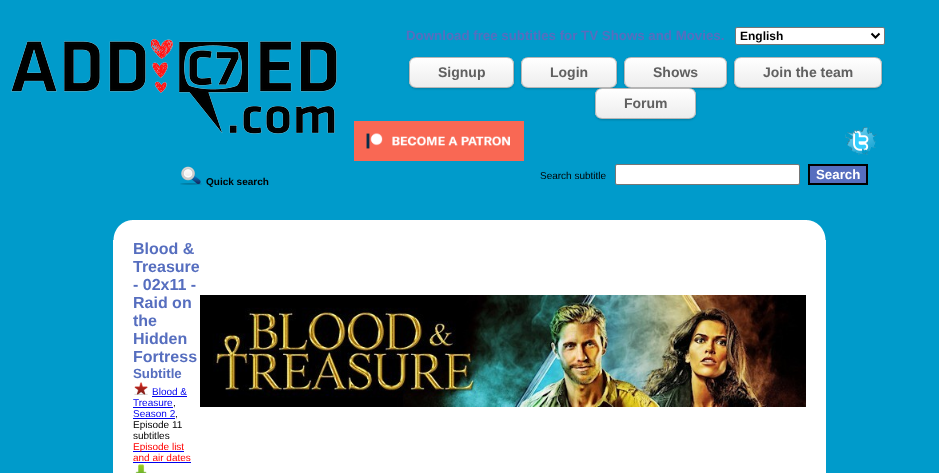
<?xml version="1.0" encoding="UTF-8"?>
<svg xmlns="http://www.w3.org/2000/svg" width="939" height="473">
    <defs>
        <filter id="blur1" x="-50%" y="-200%" width="200%" height="500%"><feGaussianBlur stdDeviation="1"/></filter>
        <clipPath id="clip1"><rect x="409" y="57" width="105" height="31" rx="7"/></clipPath>
        <linearGradient id="g1" gradientUnits="userSpaceOnUse" x1="410" y1="58" x2="410" y2="87"><stop offset="0" stop-color="#FFFFFF"/><stop offset="1" stop-color="#EDEDED"/></linearGradient>
        <clipPath id="clip2"><rect x="521" y="57" width="96" height="31" rx="7"/></clipPath>
        <linearGradient id="g2" gradientUnits="userSpaceOnUse" x1="522" y1="58" x2="522" y2="87"><stop offset="0" stop-color="#FFFFFF"/><stop offset="1" stop-color="#EDEDED"/></linearGradient>
        <clipPath id="clip3"><rect x="624" y="57" width="103" height="31" rx="7"/></clipPath>
        <linearGradient id="g3" gradientUnits="userSpaceOnUse" x1="625" y1="58" x2="625" y2="87"><stop offset="0" stop-color="#FFFFFF"/><stop offset="1" stop-color="#EDEDED"/></linearGradient>
        <clipPath id="clip4"><rect x="734" y="57" width="148" height="31" rx="7"/></clipPath>
        <linearGradient id="g4" gradientUnits="userSpaceOnUse" x1="735" y1="58" x2="735" y2="87"><stop offset="0" stop-color="#FFFFFF"/><stop offset="1" stop-color="#EDEDED"/></linearGradient>
        <clipPath id="clip5"><rect x="595" y="88" width="101" height="31" rx="7"/></clipPath>
        <linearGradient id="g5" gradientUnits="userSpaceOnUse" x1="596" y1="89" x2="596" y2="118"><stop offset="0" stop-color="#FFFFFF"/><stop offset="1" stop-color="#EDEDED"/></linearGradient>
    </defs>
    <rect width="100%" height="100%" fill="#009BCB"/>
    <text x="406" y="40" font-family="Liberation Sans" font-size="13.3" font-weight="700" fill="#566EBF">Download free subtitles for TV Shows and Movies.</text>
    <rect x="735.5" y="27.5" width="149" height="17" rx="1.5" fill="#FFFFFF" stroke="#767676"/>
    <path d="M 871.5 33.5 L 875.5 37.5 L 879.5 33.5" fill="none" stroke="#000000" stroke-width="2"/>
    <text x="740" y="40" font-family="Liberation Sans" font-size="12" font-weight="700" fill="#000000">English</text>
    <image x="11" y="39" width="326" height="95" href="img_01.png"/>
    <rect x="409" y="58" width="105" height="31" rx="7" fill="#000000" fill-opacity="0.2" filter="url(#blur1)"/>
    <g clip-path="url(#clip1)">
        <rect x="409" y="58" width="105" height="29" fill="url(#g1)"/>
    </g>
    <rect x="409.5" y="57.5" width="104" height="30" rx="6.5" fill="none" stroke="#B7B7B7"/>
    <text x="438" y="77" font-family="Liberation Sans" font-size="14" font-weight="700" fill="#606060">Signup</text>
    <rect x="521" y="58" width="96" height="31" rx="7" fill="#000000" fill-opacity="0.2" filter="url(#blur1)"/>
    <g clip-path="url(#clip2)">
        <rect x="521" y="58" width="96" height="29" fill="url(#g2)"/>
    </g>
    <rect x="521.5" y="57.5" width="95" height="30" rx="6.5" fill="none" stroke="#B7B7B7"/>
    <text x="550" y="77" font-family="Liberation Sans" font-size="14" font-weight="700" fill="#606060">Login</text>
    <rect x="624" y="58" width="103" height="31" rx="7" fill="#000000" fill-opacity="0.2" filter="url(#blur1)"/>
    <g clip-path="url(#clip3)">
        <rect x="624" y="58" width="103" height="29" fill="url(#g3)"/>
    </g>
    <rect x="624.5" y="57.5" width="102" height="30" rx="6.5" fill="none" stroke="#B7B7B7"/>
    <text x="653" y="77" font-family="Liberation Sans" font-size="14" font-weight="700" fill="#606060">Shows</text>
    <rect x="734" y="58" width="148" height="31" rx="7" fill="#000000" fill-opacity="0.2" filter="url(#blur1)"/>
    <g clip-path="url(#clip4)">
        <rect x="734" y="58" width="148" height="29" fill="url(#g4)"/>
    </g>
    <rect x="734.5" y="57.5" width="147" height="30" rx="6.5" fill="none" stroke="#B7B7B7"/>
    <text x="763" y="77" font-family="Liberation Sans" font-size="14" font-weight="700" fill="#606060">Join the team</text>
    <rect x="595" y="89" width="101" height="31" rx="7" fill="#000000" fill-opacity="0.2" filter="url(#blur1)"/>
    <g clip-path="url(#clip5)">
        <rect x="595" y="89" width="101" height="29" fill="url(#g5)"/>
    </g>
    <rect x="595.5" y="88.5" width="100" height="30" rx="6.5" fill="none" stroke="#B7B7B7"/>
    <text x="624" y="108" font-family="Liberation Sans" font-size="14" font-weight="700" fill="#606060">Forum</text>
    <image x="354" y="121" width="170" height="40" href="img_02.png"/>
    <image x="845" y="127" width="32" height="28" href="img_03.png"/>
    <text x="540" y="179" font-family="Liberation Sans" font-size="10" fill="#000000">Search subtitle</text>
    <rect x="615.5" y="164.5" width="184" height="20" rx="1.5" fill="#FFFFFF" stroke="#767676"/>
    <rect x="809" y="165" width="58" height="19" fill="#566EBF" stroke="#000000" stroke-width="2"/>
    <text x="816" y="179" font-family="Liberation Sans" font-size="13.3" font-weight="700" fill="#FFFFFF">Search</text>
    <image x="180" y="166" width="22" height="19" href="img_04.png"/>
    <text x="206" y="185" font-family="Liberation Sans" font-size="10" font-weight="700" fill="#000000">Quick search</text>
    <rect x="113" y="220" width="713" height="253" fill="#FFFFFF"/>
    <image x="113" y="220" width="19" height="20" href="img_05.png"/>
    <image x="807" y="220" width="19" height="20" href="img_06.png"/>
    <text font-family="Liberation Sans" font-size="16" font-weight="700" fill="#566EBF">
        <tspan x="133" y="254">Blood &amp;</tspan>
        <tspan x="133" y="272">Treasure</tspan>
        <tspan x="133" y="290">- 02x11 -</tspan>
        <tspan x="133" y="308">Raid on</tspan>
        <tspan x="133" y="326">the</tspan>
        <tspan x="133" y="344">Hidden</tspan>
        <tspan x="133" y="362">Fortress</tspan>
    </text>
    <text x="133" y="378" font-family="Liberation Sans" font-size="13.3" font-weight="700" fill="#566EBF">Subtitle</text>
    <image x="200" y="295" width="606" height="112" href="img_07.png"/>
    <image x="134" y="382" width="14" height="13" href="img_08.png"/>
    <text x="152" y="395" font-family="Liberation Sans" font-size="10" fill="#0000EE">Blood &amp;</text>
    <rect x="152" y="396" width="35" height="1" fill="#0000EE"/>
    <text x="133" y="406" font-family="Liberation Sans" font-size="10" fill="#0000EE">Treasure</text>
    <rect x="133" y="407" width="40" height="1" fill="#0000EE"/>
    <text x="173" y="406" font-family="Liberation Sans" font-size="10" fill="#000000">,</text>
    <text x="133" y="417" font-family="Liberation Sans" font-size="10" fill="#0000EE">Season 2</text>
    <rect x="133" y="418" width="42" height="1" fill="#0000EE"/>
    <text x="175" y="417" font-family="Liberation Sans" font-size="10" fill="#000000">,</text>
    <text font-family="Liberation Sans" font-size="10" fill="#000000">
        <tspan x="133" y="428">Episode 11</tspan>
        <tspan x="133" y="439">subtitles</tspan>
    </text>
    <rect x="133" y="451" width="51" height="1" fill="#0000EE"/>
    <text font-family="Liberation Sans" font-size="10" fill="#FF0000">
        <tspan x="133" y="450">Episode list</tspan>
        <tspan x="133" y="461">and air dates</tspan>
    </text>
    <rect x="133" y="462" width="58" height="1" fill="#0000EE"/>
    <image x="135" y="464" width="12" height="9" href="img_09.png"/>
</svg>
